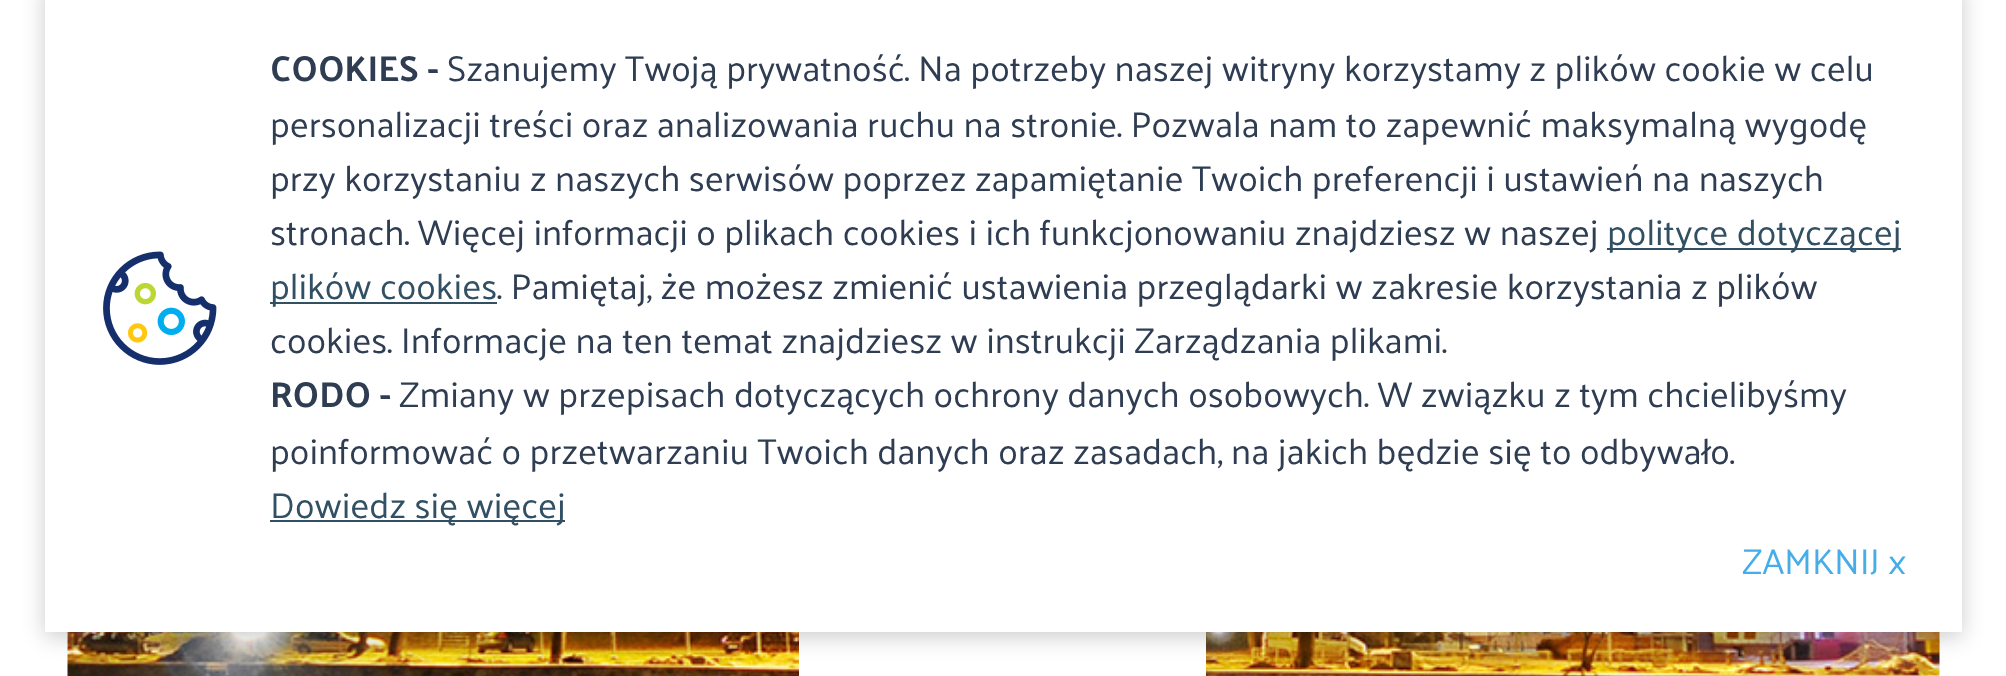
<?xml version="1.0" encoding="UTF-8"?>
<svg xmlns="http://www.w3.org/2000/svg" width="2006" height="676">
    <defs>
        <filter id="blur1" x="-50%" y="-200%" width="200%" height="500%"><feGaussianBlur stdDeviation="11"/></filter>
    </defs>
    <rect width="100%" height="100%" fill="#FFFFFF"/>
    <image x="67" y="632" width="1873" height="44" href="img_02.png"/>
    <rect x="799" y="632" width="407" height="44" fill="#FFFFFF"/>
    <rect x="45" y="-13" width="1917" height="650" fill="#000000" fill-opacity="0.2" filter="url(#blur1)"/>
    <rect x="45" y="0" width="1917" height="632" fill="#FFFFFF"/>
    <image x="103" y="251" width="114" height="114" href="img_01.png"/>
    <text x="270" y="81" font-family="Palanquin" font-size="36" font-weight="700" fill="#2F3D53">COOKIES -</text>
    <text x="447" y="81" font-family="Palanquin" font-size="36" fill="#2F3D53">Szanujemy Twoją prywatność. Na potrzeby naszej witryny korzystamy z plików cookie w celu</text>
    <text font-family="Palanquin" font-size="36" fill="#2F3D53">
        <tspan x="270" y="137">personalizacji treści oraz analizowania ruchu na stronie. Pozwala nam to zapewnić maksymalną wygodę</tspan>
        <tspan x="270" y="191">przy korzystaniu z naszych serwisów poprzez zapamiętanie Twoich preferencji i ustawień na naszych</tspan>
        <tspan x="270" y="245">stronach. Więcej informacji o plikach cookies i ich funkcjonowaniu znajdziesz w naszej</tspan>
    </text>
    <rect x="1607" y="248" width="294" height="2" fill="#325063"/>
    <text x="1607" y="245" font-family="Palanquin" font-size="36" fill="#325063">polityce dotyczącej</text>
    <rect x="270" y="302" width="227" height="2" fill="#325063"/>
    <text x="270" y="299" font-family="Palanquin" font-size="36" fill="#325063">plików cookies</text>
    <text x="497" y="299" font-family="Palanquin" font-size="36" fill="#2F3D53">. Pamiętaj, że możesz zmienić ustawienia przeglądarki w zakresie korzystania z plików</text>
    <text x="270" y="353" font-family="Palanquin" font-size="36" fill="#2F3D53">cookies. Informacje na ten temat znajdziesz w instrukcji Zarządzania plikami.</text>
    <text x="270" y="407" font-family="Palanquin" font-size="36" font-weight="700" fill="#2F3D53">RODO -</text>
    <text x="399" y="407" font-family="Palanquin" font-size="36" fill="#2F3D53">Zmiany w przepisach dotyczących ochrony danych osobowych. W związku z tym chcielibyśmy</text>
    <text x="270" y="464" font-family="Palanquin" font-size="36" fill="#2F3D53">poinformować o przetwarzaniu Twoich danych oraz zasadach, na jakich będzie się to odbywało.</text>
    <rect x="270" y="520" width="295" height="2" fill="#325063"/>
    <text x="270" y="518" font-family="Palanquin" font-size="36" fill="#325063">Dowiedz się więcej</text>
    <text x="1742" y="574" font-family="Palanquin" font-size="36" fill="#46ADE9">ZAMKNIJ x</text>
</svg>
